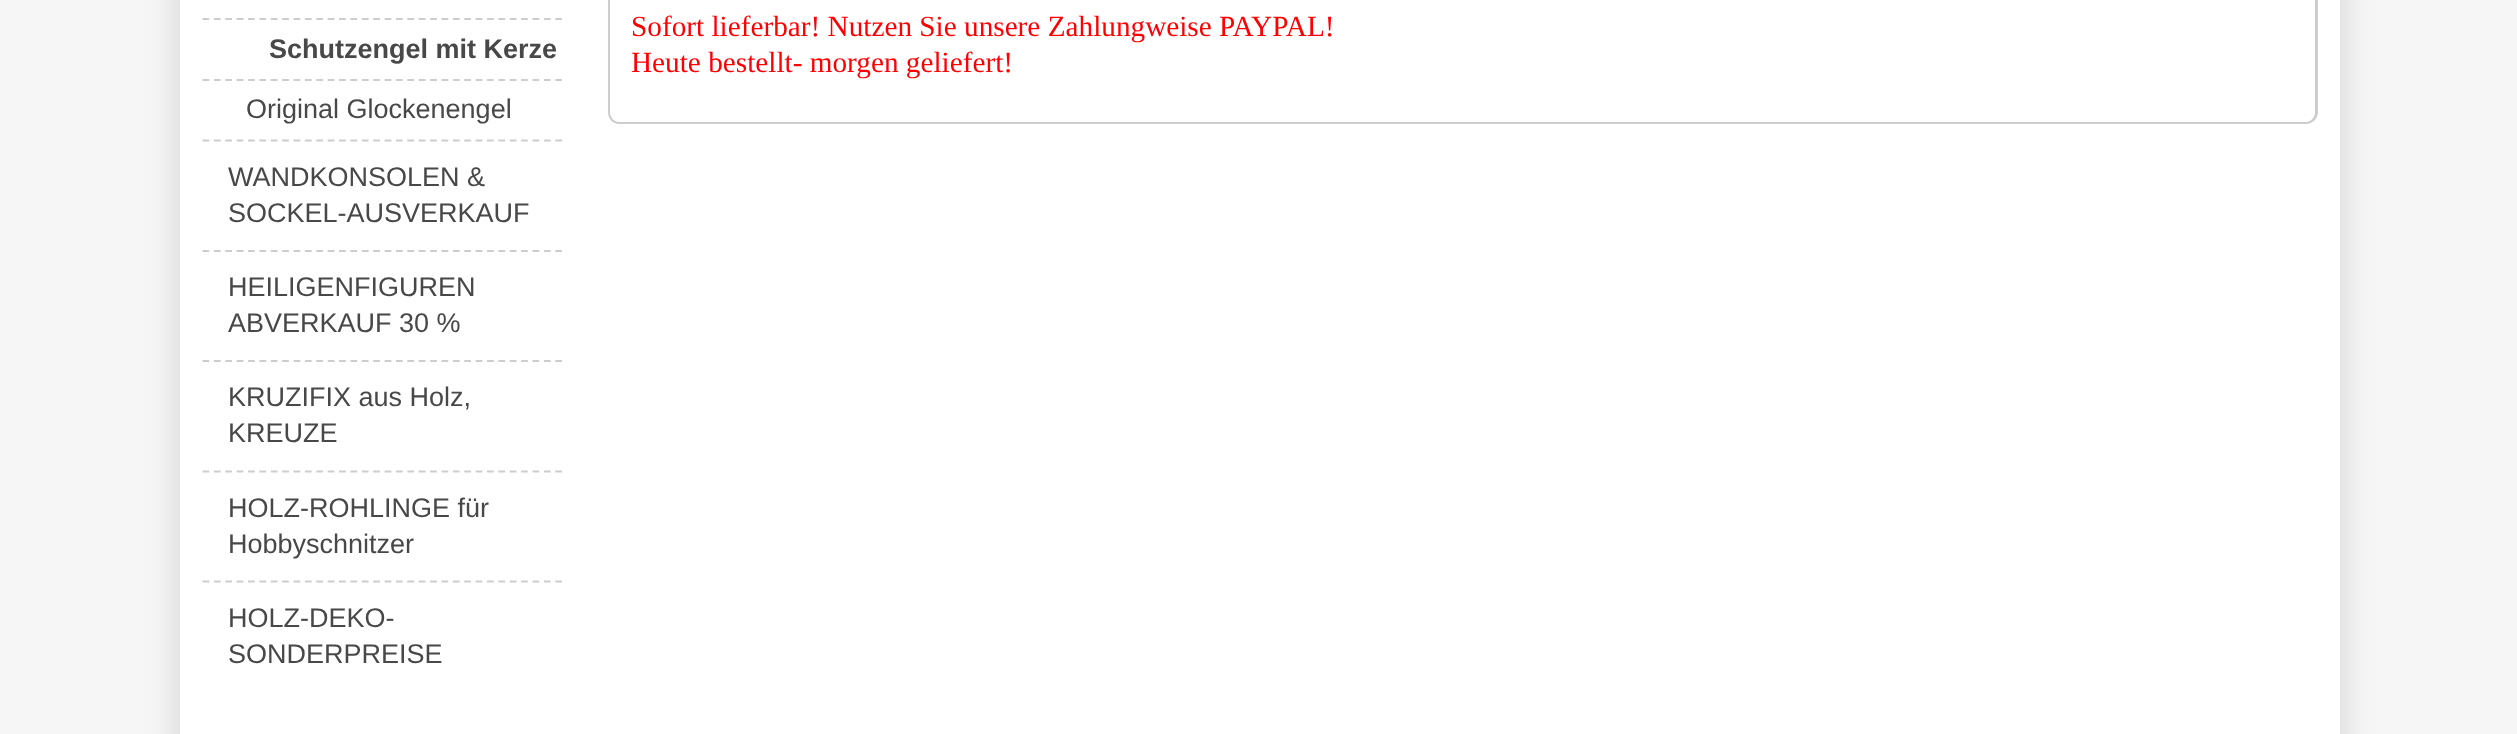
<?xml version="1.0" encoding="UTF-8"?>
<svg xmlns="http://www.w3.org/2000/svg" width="2517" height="734">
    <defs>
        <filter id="blur1" x="-50%" y="-200%" width="200%" height="500%"><feGaussianBlur stdDeviation="17"/></filter>
    </defs>
    <rect width="100%" height="100%" fill="#F6F6F6"/>
    <rect x="180" y="-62" width="2160" height="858" rx="11" fill="#000000" fill-opacity="0.15" filter="url(#blur1)"/>
    <rect x="180" y="0" width="2160" height="734" fill="#FFFFFF"/>
    <path d="M 202.5 19 H 562.5" fill="none" stroke="#CDCDCD" stroke-width="2.2" stroke-dasharray="6.75 4.63"/>
    <path d="M 202.5 80 H 562.5" fill="none" stroke="#CDCDCD" stroke-width="2.2" stroke-dasharray="6.75 4.63"/>
    <text x="269" y="58" font-family="Liberation Sans" font-size="27" font-weight="700" fill="#484848">Schutzengel mit Kerze</text>
    <path d="M 202.5 140.5 H 562.5" fill="none" stroke="#CDCDCD" stroke-width="2.2" stroke-dasharray="6.75 4.63"/>
    <text x="246" y="118" font-family="Liberation Sans" font-size="27" fill="#484848">Original Glockenengel</text>
    <path d="M 202.5 251 H 562.5" fill="none" stroke="#CDCDCD" stroke-width="2.2" stroke-dasharray="6.75 4.63"/>
    <text font-family="Liberation Sans" font-size="27" fill="#484848">
        <tspan x="228" y="186">WANDKONSOLEN &amp;</tspan>
        <tspan x="228" y="222">SOCKEL-AUSVERKAUF</tspan>
    </text>
    <path d="M 202.5 361 H 562.5" fill="none" stroke="#CDCDCD" stroke-width="2.2" stroke-dasharray="6.75 4.63"/>
    <text font-family="Liberation Sans" font-size="27" fill="#484848">
        <tspan x="228" y="296">HEILIGENFIGUREN</tspan>
        <tspan x="228" y="332">ABVERKAUF 30 %</tspan>
    </text>
    <path d="M 202.5 471.5 H 562.5" fill="none" stroke="#CDCDCD" stroke-width="2.2" stroke-dasharray="6.75 4.63"/>
    <text font-family="Liberation Sans" font-size="27" fill="#484848">
        <tspan x="228" y="406">KRUZIFIX aus Holz,</tspan>
        <tspan x="228" y="442">KREUZE</tspan>
    </text>
    <path d="M 202.5 581.5 H 562.5" fill="none" stroke="#CDCDCD" stroke-width="2.2" stroke-dasharray="6.75 4.63"/>
    <text font-family="Liberation Sans" font-size="27" fill="#484848">
        <tspan x="228" y="517">HOLZ-ROHLINGE für</tspan>
        <tspan x="228" y="553">Hobbyschnitzer</tspan>
    </text>
    <text font-family="Liberation Sans" font-size="27" fill="#484848">
        <tspan x="228" y="627">HOLZ-DEKO-</tspan>
        <tspan x="228" y="663">SONDERPREISE</tspan>
    </text>
    <path d="M 608 -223 H 2318 V 112 C 2318 119 2312 124 2306 124 H 619 C 613 124 608 119 608 112 Z M 610 -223 H 2315 V 112 C 2315 117 2311 122 2306 122 H 619 C 614 122 610 117 610 112 Z" fill="#CDCDCD" fill-rule="evenodd"/>
    <text font-family="Liberation Serif" font-size="29.25" fill="#FF0000">
        <tspan x="631" y="36">Sofort lieferbar! Nutzen Sie unsere Zahlungweise PAYPAL!</tspan>
        <tspan x="631" y="72">Heute bestellt- morgen geliefert!</tspan>
    </text>
</svg>
